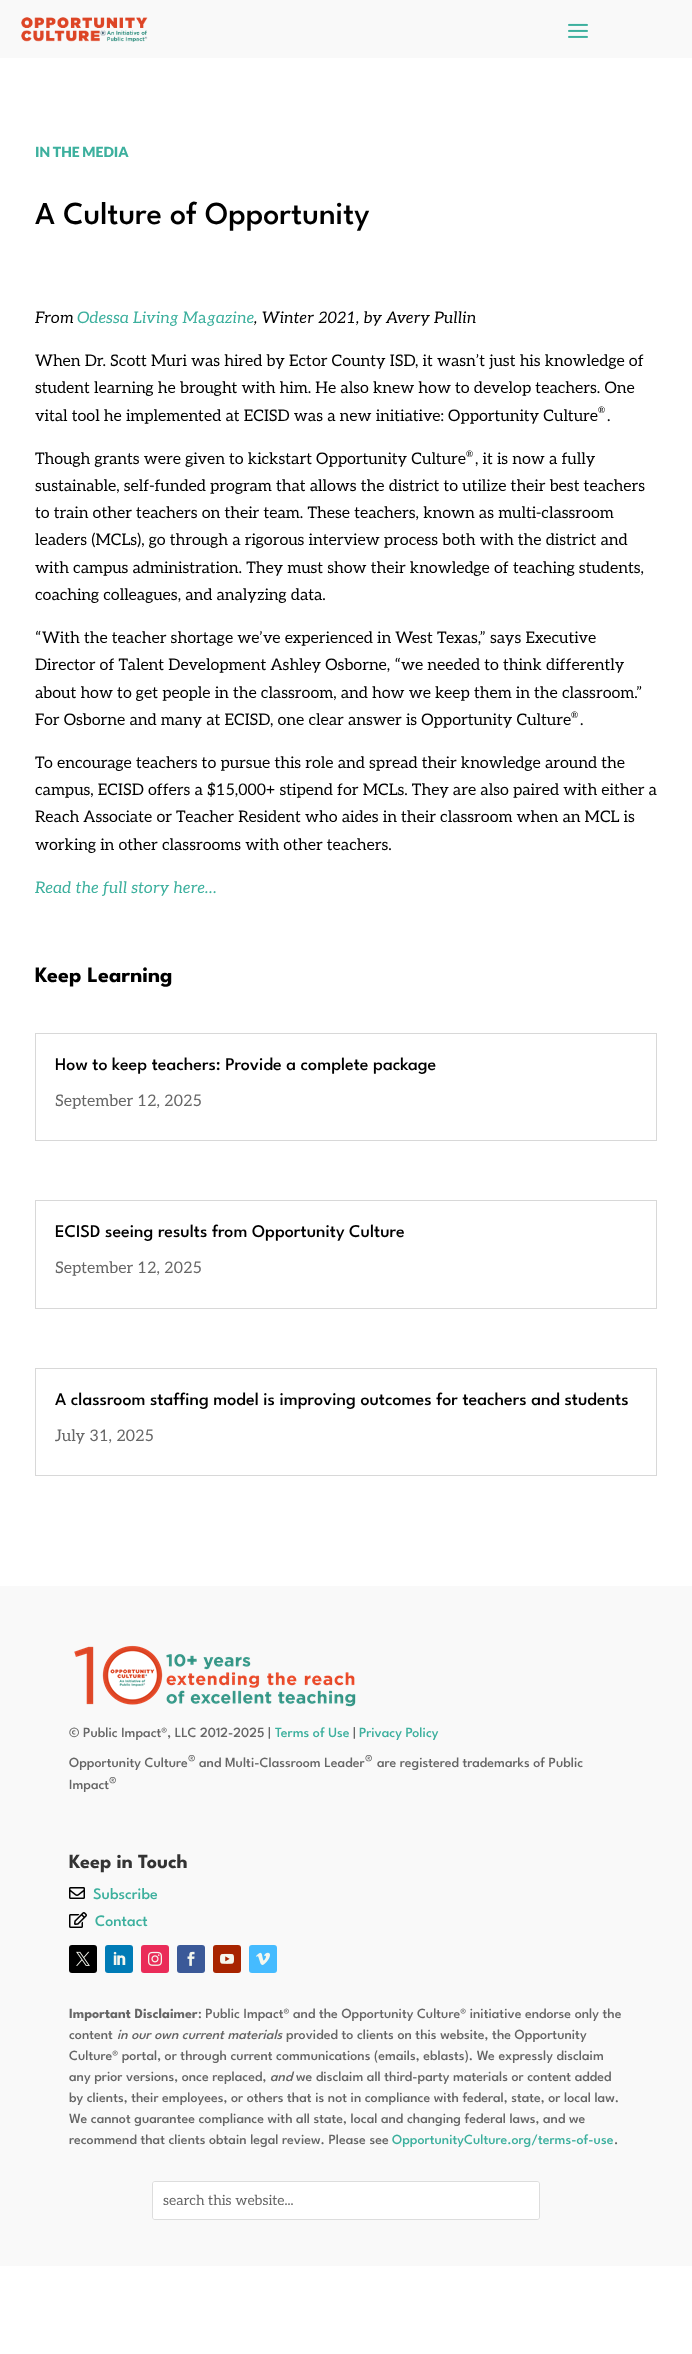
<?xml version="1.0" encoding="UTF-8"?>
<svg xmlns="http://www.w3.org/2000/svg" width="692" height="2354">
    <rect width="100%" height="100%" fill="#FFFFFF"/>
    <rect x="0" y="0" width="692" height="58" fill="#F9F9F9"/>
    <image x="21" y="17" width="127" height="25" href="img_01.png"/>
    <image x="568" y="23" width="20" height="15" href="img_02.png"/>
    <text x="35" y="157" font-family="Lato" font-size="14" font-weight="900" fill="#3DB09E">IN THE MEDIA</text>
    <text x="35" y="224" font-family="League Spartan" font-size="32" font-weight="100" fill="#000000">A Culture of Opportunity</text>
    <text x="35" y="323" font-family="Aleo" font-size="16" font-style="italic" fill="#000000">From</text>
    <text x="77" y="323" font-family="Aleo" font-size="16" font-style="italic" fill="#3DB09E">Odessa Living M</text>
    <text x="198" y="323" font-family="Aleo" font-size="16" fill="#3DB09E">a</text>
    <text x="207" y="323" font-family="Aleo" font-size="16" font-style="italic" fill="#3DB09E">gazine</text>
    <text x="254" y="323" font-family="Aleo" font-size="16" font-style="italic" fill="#000000">, Winter 2021, by Avery Pullin</text>
    <text font-family="Aleo" font-size="16" fill="#000000">
        <tspan x="35" y="366">When Dr. Scott Muri was hired by Ector County ISD, it wasn’t just his knowledge of</tspan>
        <tspan x="35" y="393">student learning he brought with him. He also knew how to develop teachers. One</tspan>
        <tspan x="35" y="421">vital tool he implemented at ECISD was a new initiative: Opportunity Culture</tspan>
    </text>
    <text x="598" y="413" font-family="Aleo" font-size="9" fill="#000000">®</text>
    <text x="607" y="421" font-family="Aleo" font-size="16" fill="#000000">.</text>
    <text x="35" y="464" font-family="Aleo" font-size="16" fill="#000000">Though grants were given to kickstart Opportunity Culture</text>
    <text x="466" y="457" font-family="Aleo" font-size="9" fill="#000000">®</text>
    <text x="475" y="464" font-family="Aleo" font-size="16" fill="#000000">, it is now a fully</text>
    <text font-family="Aleo" font-size="16" fill="#000000">
        <tspan x="35" y="491">sustainable, self-funded program that allows the district to utilize their best teachers</tspan>
        <tspan x="35" y="518">to train other teachers on their team. These teachers, known as multi-classroom</tspan>
        <tspan x="35" y="545">leaders (MCLs), go through a rigorous interview process both with the district and</tspan>
        <tspan x="35" y="573">with campus administration. They must show their knowledge of teaching students,</tspan>
        <tspan x="35" y="600">coaching colleagues, and analyzing data.</tspan>
    </text>
    <text font-family="Aleo" font-size="16" fill="#000000">
        <tspan x="35" y="643">“With the teacher shortage we’ve experienced in West Texas,” says Executive</tspan>
        <tspan x="35" y="670">Director of Talent Development Ashley Osborne, “we needed to think differently</tspan>
        <tspan x="35" y="698">about how to get people in the classroom, and how we keep them in the classroom.”</tspan>
        <tspan x="35" y="725">For Osborne and many at ECISD, one clear answer is Opportunity Culture</tspan>
    </text>
    <text x="571" y="718" font-family="Aleo" font-size="9" fill="#000000">®</text>
    <text x="580" y="725" font-family="Aleo" font-size="16" fill="#000000">.</text>
    <text font-family="Aleo" font-size="16" fill="#000000">
        <tspan x="35" y="768">To encourage teachers to pursue this role and spread their knowledge around the</tspan>
        <tspan x="35" y="795">campus, ECISD offers a $15,000+ stipend for MCLs. They are also paired with either a</tspan>
        <tspan x="35" y="822">Reach Associate or Teacher Resident who aides in their classroom when an MCL is</tspan>
        <tspan x="35" y="850">working in other classrooms with other teachers.</tspan>
    </text>
    <text x="35" y="893" font-family="Aleo" font-size="16" font-style="italic" fill="#3DB09E">Read the full story here…</text>
    <text x="35" y="982" font-family="'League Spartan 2'" font-size="22" font-weight="100" fill="#000000">Keep Learning</text>
    <rect x="35.5" y="1033.5" width="621" height="107" fill="none" stroke="#D8D8D8"/>
    <text x="55" y="1070" font-family="League Spartan" font-size="18" font-weight="100" fill="#000000">How to keep teachers: Provide a complete package</text>
    <text x="55" y="1106" font-family="Aleo" font-size="16" fill="#666666">September 12, 2025</text>
    <rect x="35.5" y="1200.5" width="621" height="108" fill="none" stroke="#D8D8D8"/>
    <text x="55" y="1237" font-family="League Spartan" font-size="18" font-weight="100" fill="#000000">ECISD seeing results from Opportunity Culture</text>
    <text x="55" y="1273" font-family="Aleo" font-size="16" fill="#666666">September 12, 2025</text>
    <rect x="35.5" y="1368.5" width="621" height="107" fill="none" stroke="#D8D8D8"/>
    <text x="55" y="1405" font-family="League Spartan" font-size="18" font-weight="100" fill="#000000">A classroom staffing model is improving outcomes for teachers and students</text>
    <text x="55" y="1441" font-family="Aleo" font-size="16" fill="#666666">July 31, 2025</text>
    <rect x="0" y="1586" width="692" height="680" fill="#F9F9F9"/>
    <image x="74" y="1645" width="282" height="62" href="img_03.png"/>
    <text x="69" y="1737" font-family="League Spartan" font-size="14" font-weight="100" fill="#666666">© Public Impact®, LLC 2012-2025 |</text>
    <text x="275" y="1737" font-family="League Spartan" font-size="14" font-weight="100" fill="#3DB09E">Terms of Use</text>
    <text x="353" y="1737" font-family="League Spartan" font-size="14" font-weight="100" fill="#666666">|</text>
    <text x="359" y="1737" font-family="League Spartan" font-size="14" font-weight="100" fill="#3DB09E">Privacy Policy</text>
    <text x="69" y="1767" font-family="League Spartan" font-size="14" font-weight="100" fill="#666666">Opportunity Culture</text>
    <text x="188" y="1767" font-family="League Spartan" font-size="18" font-weight="100" fill="#666666">®</text>
    <text x="199" y="1767" font-family="League Spartan" font-size="14" font-weight="100" fill="#666666">and Multi-Classroom Leader</text>
    <text x="365" y="1767" font-family="League Spartan" font-size="18" font-weight="100" fill="#666666">®</text>
    <text x="377" y="1767" font-family="League Spartan" font-size="14" font-weight="100" fill="#666666">are registered trademarks of Public</text>
    <text x="69" y="1789" font-family="League Spartan" font-size="14" font-weight="100" fill="#666666">Impact</text>
    <text x="109" y="1789" font-family="League Spartan" font-size="18" font-weight="100" fill="#666666">®</text>
    <text x="69" y="1868" font-family="'League Spartan 2'" font-size="20" font-weight="100" fill="#333333">Keep in Touch</text>
    <image x="69" y="1887" width="16" height="12" href="img_04.png"/>
    <text x="93" y="1899" font-family="League Spartan" font-size="16" font-weight="100" fill="#3DB09E">Subscribe</text>
    <image x="69" y="1912" width="18" height="16" href="img_05.png"/>
    <text x="95" y="1926" font-family="League Spartan" font-size="16" font-weight="100" fill="#3DB09E">Contact</text>
    <rect x="69" y="1945" width="28" height="28" rx="3" fill="#000000"/>
    <image x="76" y="1951" width="14" height="15" href="img_06.png"/>
    <rect x="105" y="1945" width="28" height="28" rx="3" fill="#007BB6"/>
    <image x="113" y="1951" width="13" height="14" href="img_07.png"/>
    <rect x="141" y="1945" width="28" height="28" rx="3" fill="#EA2C59"/>
    <image x="148" y="1951" width="14" height="15" href="img_08.png"/>
    <rect x="177" y="1945" width="28" height="28" rx="3" fill="#3B5998"/>
    <image x="187" y="1951" width="8" height="15" href="img_09.png"/>
    <rect x="213" y="1945" width="28" height="28" rx="3" fill="#A82400"/>
    <image x="220" y="1953" width="14" height="11" href="img_10.png"/>
    <rect x="249" y="1945" width="28" height="28" rx="3" fill="#45BBFF"/>
    <image x="256" y="1952" width="14" height="13" href="img_11.png"/>
    <text x="69" y="2018" font-family="'League Spartan 2'" font-size="14" font-weight="100" fill="#666666">Important Disclaimer</text>
    <text x="198" y="2018" font-family="League Spartan" font-size="14" font-weight="100" fill="#666666">: Public Impact® and the Opportunity Culture® initiative endorse only the</text>
    <text x="69" y="2039" font-family="League Spartan" font-size="14" font-weight="100" fill="#666666">content</text>
    <text x="117" y="2039" font-family="League Spartan" font-size="14" font-weight="100" font-style="italic" fill="#666666">in our own current materials</text>
    <text x="286" y="2039" font-family="League Spartan" font-size="14" font-weight="100" fill="#666666">provided to clients on this website, the Opportunity</text>
    <text font-family="League Spartan" font-size="14" font-weight="100" fill="#666666">
        <tspan x="69" y="2060">Culture® portal, or through current communications (emails, eblasts). We expressly disclaim</tspan>
        <tspan x="69" y="2081">any prior versions, once replaced,</tspan>
    </text>
    <text x="270" y="2081" font-family="League Spartan" font-size="14" font-weight="100" font-style="italic" fill="#666666">and</text>
    <text x="296" y="2081" font-family="League Spartan" font-size="14" font-weight="100" fill="#666666">we disclaim all third-party materials or content added</text>
    <text font-family="League Spartan" font-size="14" font-weight="100" fill="#666666">
        <tspan x="69" y="2102">by clients, their employees, or others that is not in compliance with federal, state, or local law.</tspan>
        <tspan x="69" y="2123">We cannot guarantee compliance with all state, local and changing federal laws, and we</tspan>
        <tspan x="69" y="2144">recommend that clients obtain legal review. Please see</tspan>
    </text>
    <text x="392" y="2144" font-family="League Spartan" font-size="14" font-weight="100" fill="#3DB09E">OpportunityCulture.org/terms-of-use</text>
    <text x="614" y="2144" font-family="League Spartan" font-size="14" font-weight="100" fill="#666666">.</text>
    <rect x="152.5" y="2181.5" width="387" height="38" rx="2.5" fill="none" stroke="#DDDDDD"/>
    <rect x="153" y="2182" width="386" height="37" rx="2" fill="#FFFFFF"/>
    <text x="163" y="2205" font-family="Aleo" font-size="14" fill="#666666">search this website...</text>
</svg>
